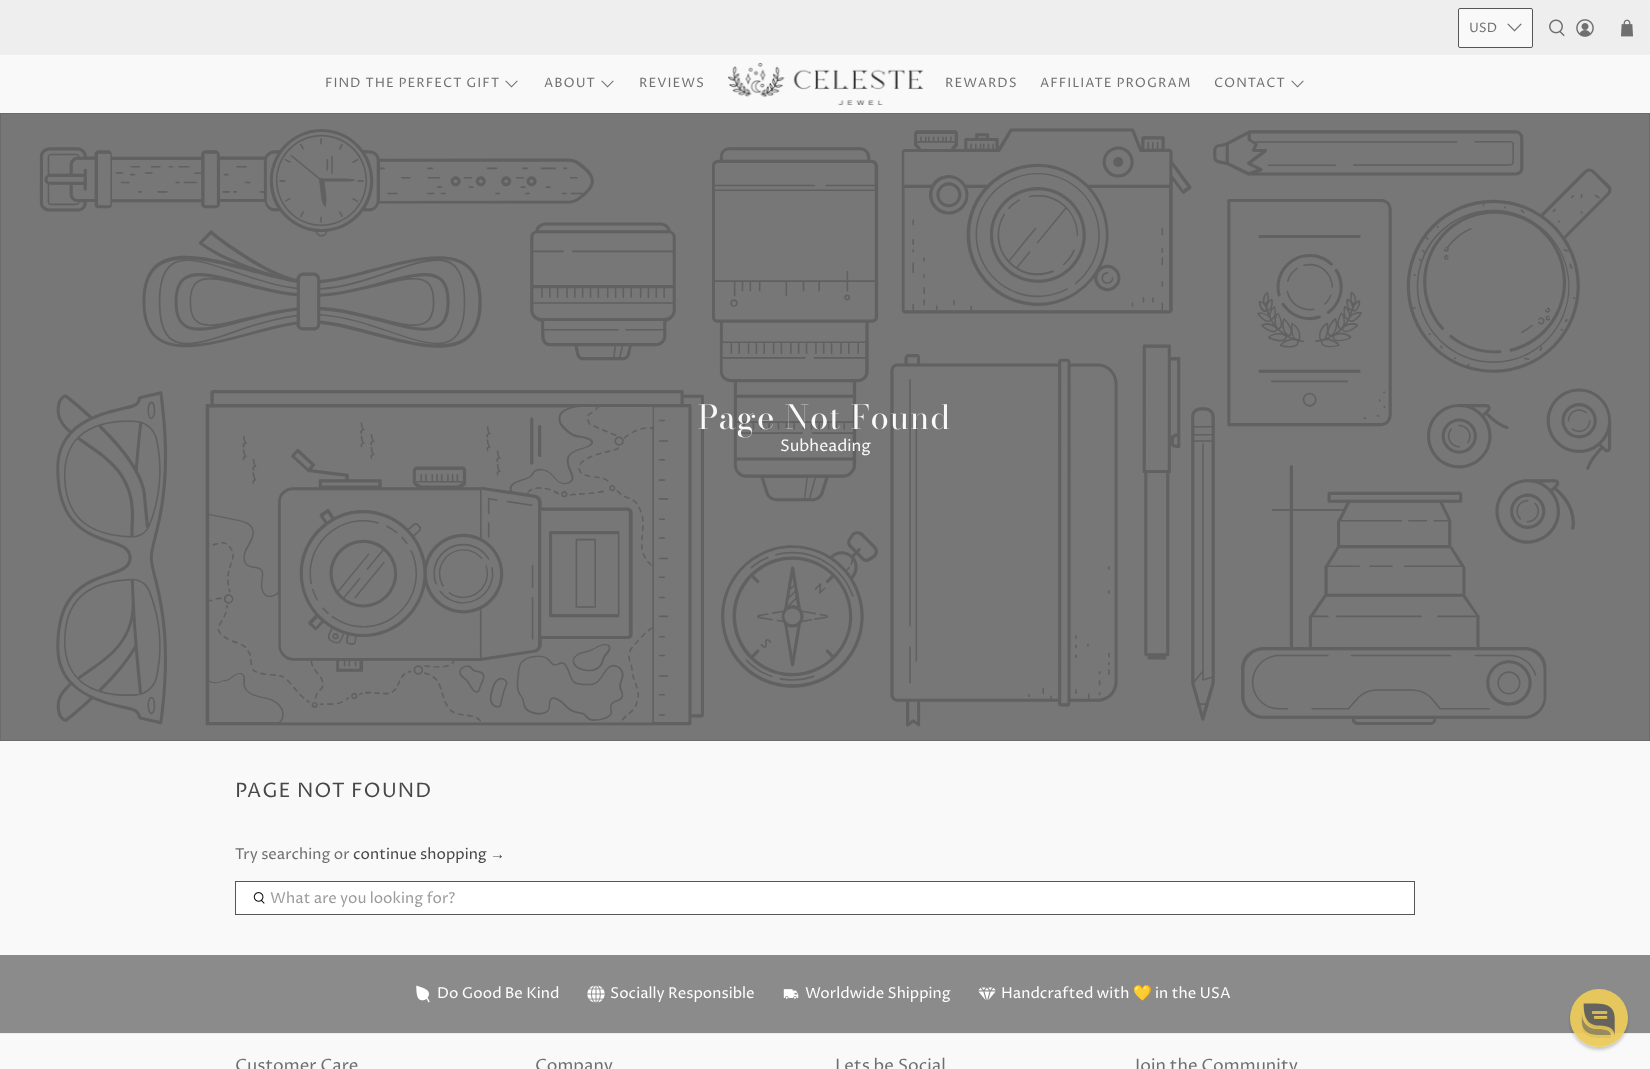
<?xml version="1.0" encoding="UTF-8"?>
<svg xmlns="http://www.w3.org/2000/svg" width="1650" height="1069">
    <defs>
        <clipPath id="clip1"><path d="M 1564 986 H 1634 V 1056 H 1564 Z M 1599 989 C 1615 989 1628 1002 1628 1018 C 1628 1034 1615 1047 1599 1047 C 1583 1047 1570 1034 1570 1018 C 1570 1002 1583 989 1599 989 Z" clip-rule="evenodd"/></clipPath>
        <filter id="blur1" x="-50%" y="-200%" width="200%" height="500%"><feGaussianBlur stdDeviation="1.5"/></filter>
    </defs>
    <rect width="100%" height="100%" fill="#F9F9F9"/>
    <rect x="0" y="0" width="1650" height="55" fill="#EEEEEE"/>
    <rect x="1458.5" y="8.5" width="74" height="39" rx="1.5" fill="#F9F9F9" stroke="#565656"/>
    <text x="1469" y="32" font-family="Proza Libre" font-size="13" fill="#6F6F6F">USD</text>
    <image x="1507" y="23" width="15" height="9" href="img_01.png"/>
    <image x="1549" y="19" width="16" height="18" href="img_02.png"/>
    <image x="1576" y="19" width="18" height="18" href="img_03.png"/>
    <image x="1621" y="19" width="12" height="18" href="img_04.png"/>
    <text x="325" y="87" font-family="Proza Libre" font-size="13" letter-spacing="1" fill="#6F6F6F">FIND THE PERFECT GIFT</text>
    <image x="505" y="80" width="13" height="8" href="img_05.png"/>
    <text x="544" y="87" font-family="Proza Libre" font-size="13" letter-spacing="1" fill="#6F6F6F">ABOUT</text>
    <image x="601" y="80" width="13" height="8" href="img_05.png"/>
    <text x="639" y="87" font-family="Proza Libre" font-size="13" letter-spacing="1" fill="#6F6F6F">REVIEWS</text>
    <image x="728" y="63" width="195" height="42" href="img_06.png"/>
    <text x="945" y="87" font-family="Proza Libre" font-size="13" letter-spacing="1" fill="#6F6F6F">REWARDS</text>
    <text x="1040" y="87" font-family="Proza Libre" font-size="13" letter-spacing="1" fill="#6F6F6F">AFFILIATE PROGRAM</text>
    <text x="1214" y="87" font-family="Proza Libre" font-size="13" letter-spacing="1" fill="#6F6F6F">CONTACT</text>
    <image x="1291" y="80" width="13" height="8" href="img_05.png"/>
    <rect x="0.5" y="113.5" width="1649" height="627" fill="#777777" stroke="#6B6B6B"/>
    <image x="39" y="128" width="1573" height="599" href="img_07.png"/>
    <text x="698" y="429" font-family="Bodoni Moda" font-size="33" letter-spacing="1" fill="#F9F9F9">Page Not Found</text>
    <text x="780" y="451" font-family="Proza Libre" font-size="16" fill="#F9F9F9">Subheading</text>
    <text x="235" y="797" font-family="Proza Libre" font-size="20" letter-spacing="1" fill="#474747">PAGE NOT FOUND</text>
    <text x="235" y="859" font-family="Proza Libre" font-size="15" fill="#6F6F6F">Try searching or</text>
    <text x="353" y="859" font-family="Proza Libre" font-size="15" fill="#474747">continue shopping</text>
    <text x="490" y="859" font-family="Liberation Sans" font-size="15" fill="#474747">→</text>
    <rect x="235.5" y="881.5" width="1179" height="33" fill="#FFFFFF" stroke="#565656"/>
    <image x="253" y="892" width="12" height="12" href="img_08.png"/>
    <text x="270" y="903" font-family="Proza Libre" font-size="15" fill="#9B9B9B">What are you looking for?</text>
    <rect x="0" y="955" width="1650" height="78" fill="#8B8B8B"/>
    <image x="416" y="985" width="14" height="18" href="img_09.png"/>
    <text x="437" y="998" font-family="Proza Libre" font-size="15" fill="#FFFFFF">Do Good Be Kind</text>
    <image x="587" y="985" width="18" height="18" href="img_10.png"/>
    <text x="610" y="998" font-family="Proza Libre" font-size="15" fill="#FFFFFF">Socially Responsible</text>
    <image x="783" y="989" width="16" height="10" href="img_11.png"/>
    <text x="805" y="998" font-family="Proza Libre" font-size="15" fill="#FFFFFF">Worldwide Shipping</text>
    <image x="978" y="987" width="18" height="14" href="img_12.png"/>
    <text x="1001" y="998" font-family="Proza Libre" font-size="15" fill="#FFFFFF">Handcrafted with</text>
    <text x="1133" y="998" font-family="Noto Color Emoji" font-size="15" fill="#FFFFFF">💛</text>
    <text x="1155" y="998" font-family="Proza Libre" font-size="15" fill="#FFFFFF">in the USA</text>
    <rect x="0" y="1033" width="1650" height="1" fill="#EDEDED"/>
    <g clip-path="url(#clip1)">
        <rect x="1570" y="992" width="58" height="58" rx="29" fill="#000000" fill-opacity="0.19" filter="url(#blur1)"/>
    </g>
    <circle cx="1599" cy="1018" r="29" fill="#EBCA5B" fill-opacity="0.95"/>
    <image x="1581" y="1003" width="34" height="35" href="img_13.png"/>
    <text x="235" y="1071" font-family="Proza Libre" font-size="17" fill="#6F6F6F">Customer Care</text>
    <text x="535" y="1071" font-family="Proza Libre" font-size="17" fill="#6F6F6F">Company</text>
    <text x="835" y="1071" font-family="Proza Libre" font-size="17" fill="#6F6F6F">Lets be Social</text>
    <text x="1135" y="1071" font-family="Proza Libre" font-size="17" fill="#6F6F6F">Join the Community</text>
</svg>
